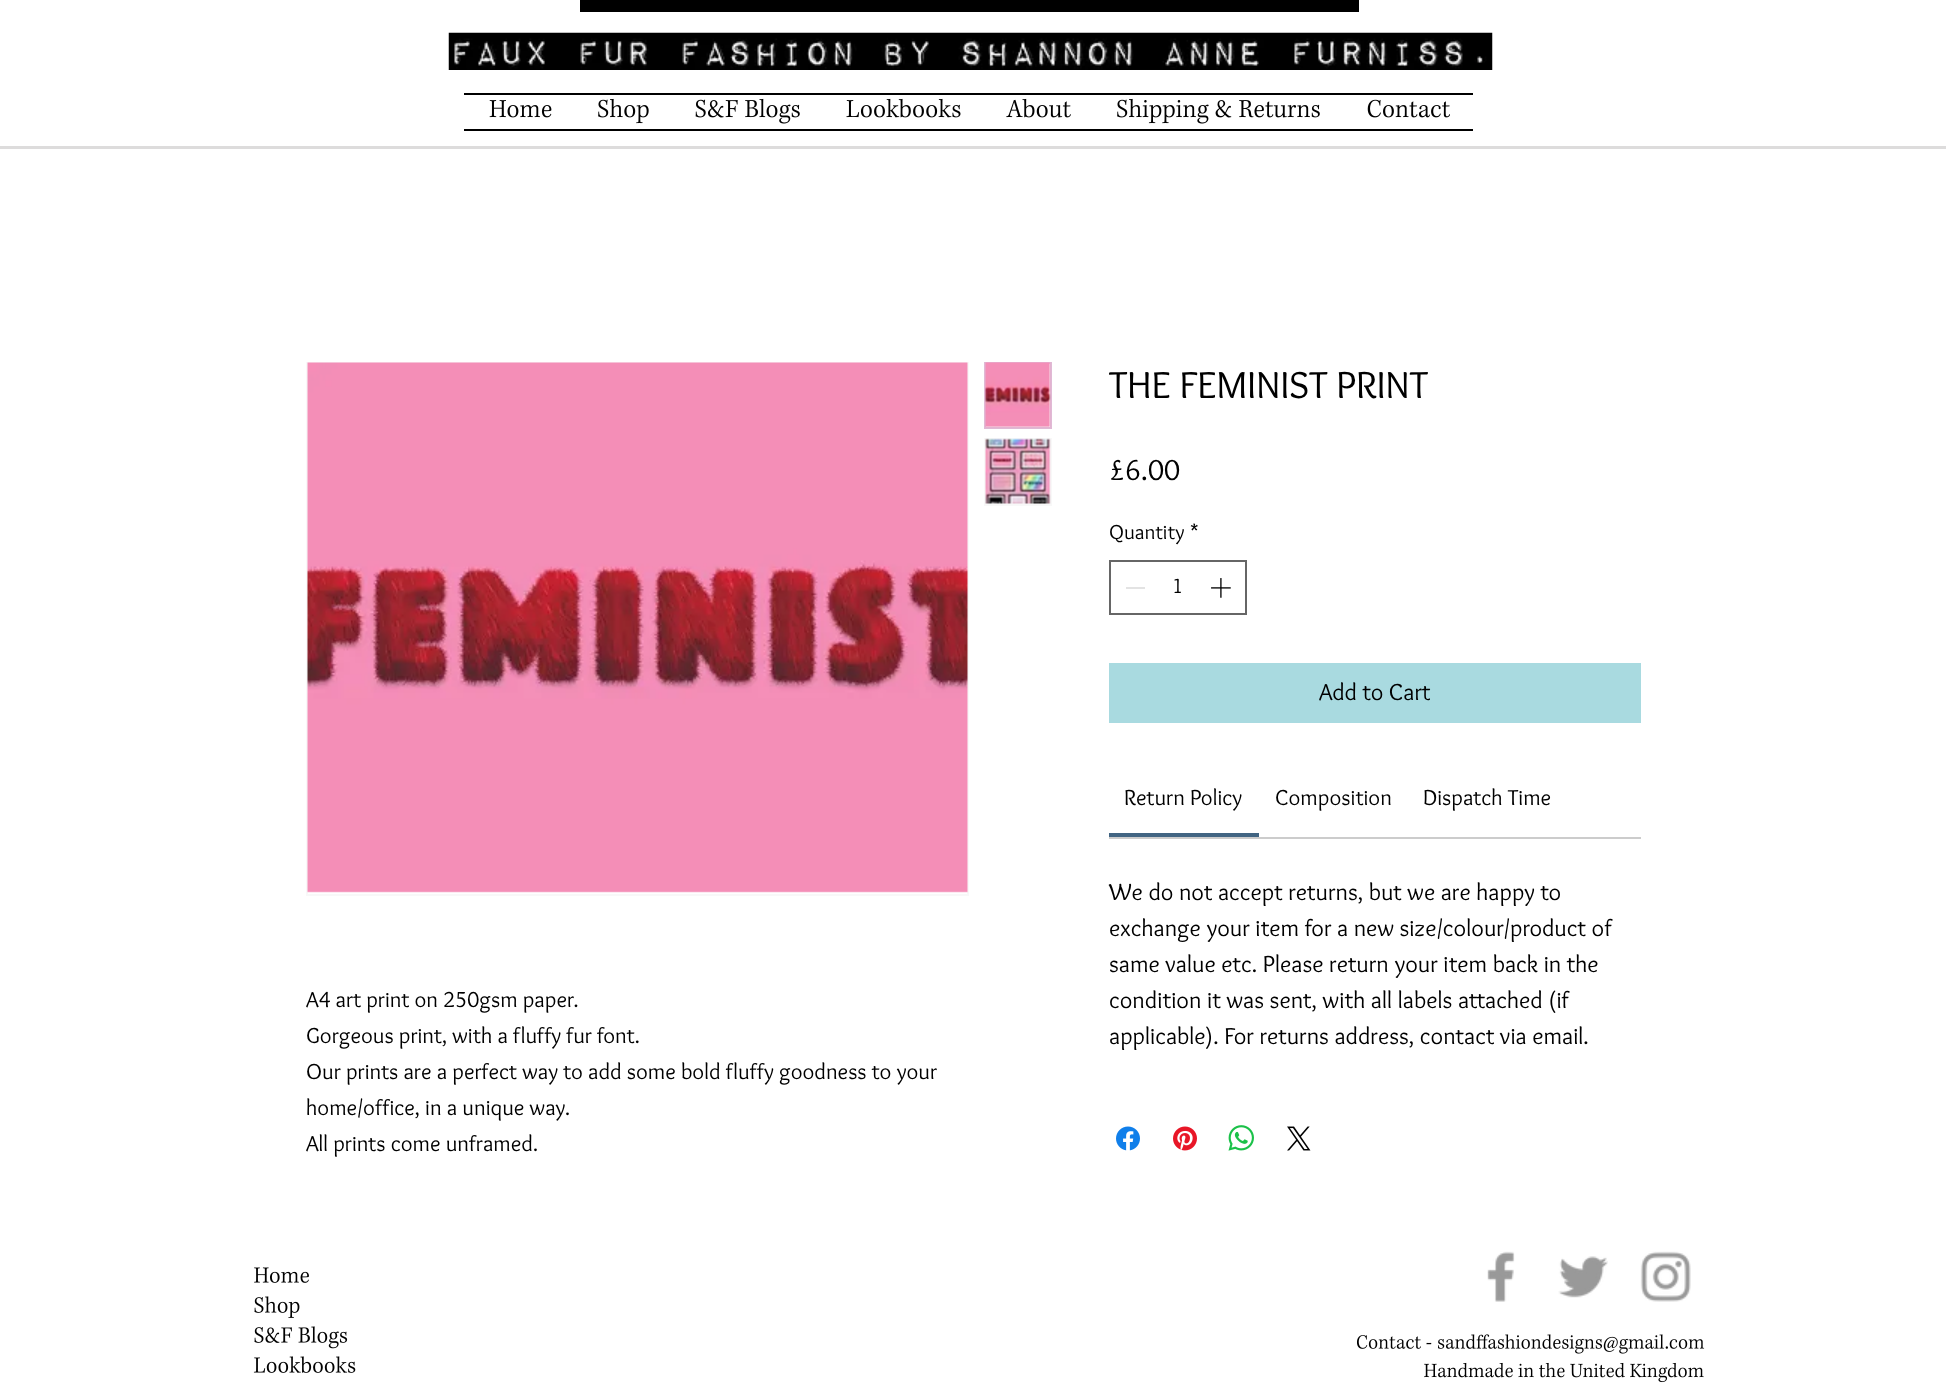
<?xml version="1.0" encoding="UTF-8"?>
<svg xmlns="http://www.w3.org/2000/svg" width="1946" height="1383">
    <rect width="100%" height="100%" fill="#FFFFFF"/>
    <rect x="580" y="0" width="779" height="12" fill="#000000"/>
    <image x="448" y="32" width="1045" height="38" href="img_01.png"/>
    <rect x="464" y="93" width="1009" height="2" fill="#000000"/>
    <rect x="464" y="129" width="1009" height="2" fill="#000000"/>
    <image x="489" y="100" width="63" height="18" href="img_02.png"/>
    <image x="598" y="98" width="51" height="26" href="img_03.png"/>
    <image x="695" y="98" width="105" height="26" href="img_04.png"/>
    <image x="846" y="98" width="115" height="20" href="img_05.png"/>
    <image x="1006" y="98" width="65" height="20" href="img_06.png"/>
    <image x="1117" y="98" width="203" height="26" href="img_07.png"/>
    <image x="1367" y="99" width="83" height="19" href="img_08.png"/>
    <rect x="0" y="146" width="1946" height="3" fill="#DDDCDC"/>
    <text x="1109" y="398" font-family="Overlock" font-size="39" fill="#000000">THE FEMINIST PRINT</text>
    <text x="1109" y="480" font-family="Overlock" font-size="30" fill="#000000">£6.00</text>
    <text x="1109" y="539" font-family="Overlock" font-size="21" fill="#000000">Quantity</text>
    <text x="1190" y="539" font-family="Overlock" font-size="21" fill="#000000">*</text>
    <rect x="1110" y="561" width="136" height="53" fill="none" stroke="#666666" stroke-width="2"/>
    <rect x="1126" y="587" width="19" height="2" fill="#E3E3E3"/>
    <text x="1172" y="593" font-family="Overlock" font-size="21" fill="#000000">1</text>
    <image x="1211" y="578" width="20" height="20" href="img_09.png"/>
    <rect x="1109" y="663" width="532" height="60" fill="#A9DAE0"/>
    <text x="1319" y="700" font-family="Overlock" font-size="24" fill="#000000">Add to Cart</text>
    <rect x="1109" y="837" width="532" height="2" fill="#CCCCCC"/>
    <rect x="1109" y="833" width="150" height="4" fill="#416482"/>
    <text x="1124" y="805" font-family="Overlock" font-size="22.5" fill="#000000">Return Policy</text>
    <text x="1275" y="805" font-family="Overlock" font-size="22.5" fill="#000000">Composition</text>
    <text x="1423" y="805" font-family="Overlock" font-size="22.5" fill="#000000">Dispatch Time</text>
    <text font-family="Overlock" font-size="24" fill="#000000">
        <tspan x="1109" y="900">We do not accept returns, but we are happy to</tspan>
        <tspan x="1109" y="936">exchange your item for a new size/colour/product of</tspan>
        <tspan x="1109" y="972">same value etc. Please return your item back in the</tspan>
        <tspan x="1109" y="1008">condition it was sent, with all labels attached (if</tspan>
        <tspan x="1109" y="1044">applicable). For returns address, contact via email.</tspan>
    </text>
    <image x="1116" y="1126" width="24" height="25" href="img_10.png"/>
    <image x="1173" y="1126" width="24" height="25" href="img_11.png"/>
    <image x="1228" y="1125" width="26" height="26" href="img_12.png"/>
    <image x="1287" y="1126" width="24" height="25" href="img_13.png"/>
    <rect x="307" y="363" width="661" height="532" fill="none" stroke="#F8F8F8" stroke-width="2"/>
    <image x="307" y="362" width="661" height="531" href="img_14.png"/>
    <rect x="985" y="363" width="66" height="65" fill="#F8F8F8" stroke="#E0B9D5" stroke-width="2"/>
    <image x="985" y="362" width="66" height="66" href="img_15.png"/>
    <rect x="984" y="438" width="68" height="68" fill="#F8F8F8"/>
    <image x="985" y="438" width="66" height="66" href="img_16.png"/>
    <text font-family="Overlock" font-size="22.5" fill="#000000">
        <tspan x="306" y="1007">A4 art print on 250gsm paper.</tspan>
        <tspan x="306" y="1043">Gorgeous print, with a fluffy fur font.</tspan>
        <tspan x="306" y="1079">Our prints are a perfect way to add some bold fluffy goodness to your</tspan>
        <tspan x="306" y="1115">home/office, in a unique way.</tspan>
        <tspan x="306" y="1151">All prints come unframed.</tspan>
    </text>
    <image x="254" y="1267" width="55" height="16" href="img_17.png"/>
    <image x="254" y="1296" width="46" height="22" href="img_18.png"/>
    <image x="254" y="1326" width="94" height="23" href="img_19.png"/>
    <image x="253" y="1356" width="103" height="17" href="img_20.png"/>
    <image x="1487" y="1251" width="28" height="51" href="img_21.png"/>
    <image x="1558" y="1256" width="50" height="42" href="img_22.png"/>
    <image x="1640" y="1251" width="51" height="51" href="img_23.png"/>
    <image x="1357" y="1335" width="75" height="14" href="img_24.png"/>
    <image x="1438" y="1334" width="267" height="20" href="img_25.png"/>
    <image x="1424" y="1362" width="280" height="21" href="img_26.png"/>
</svg>
